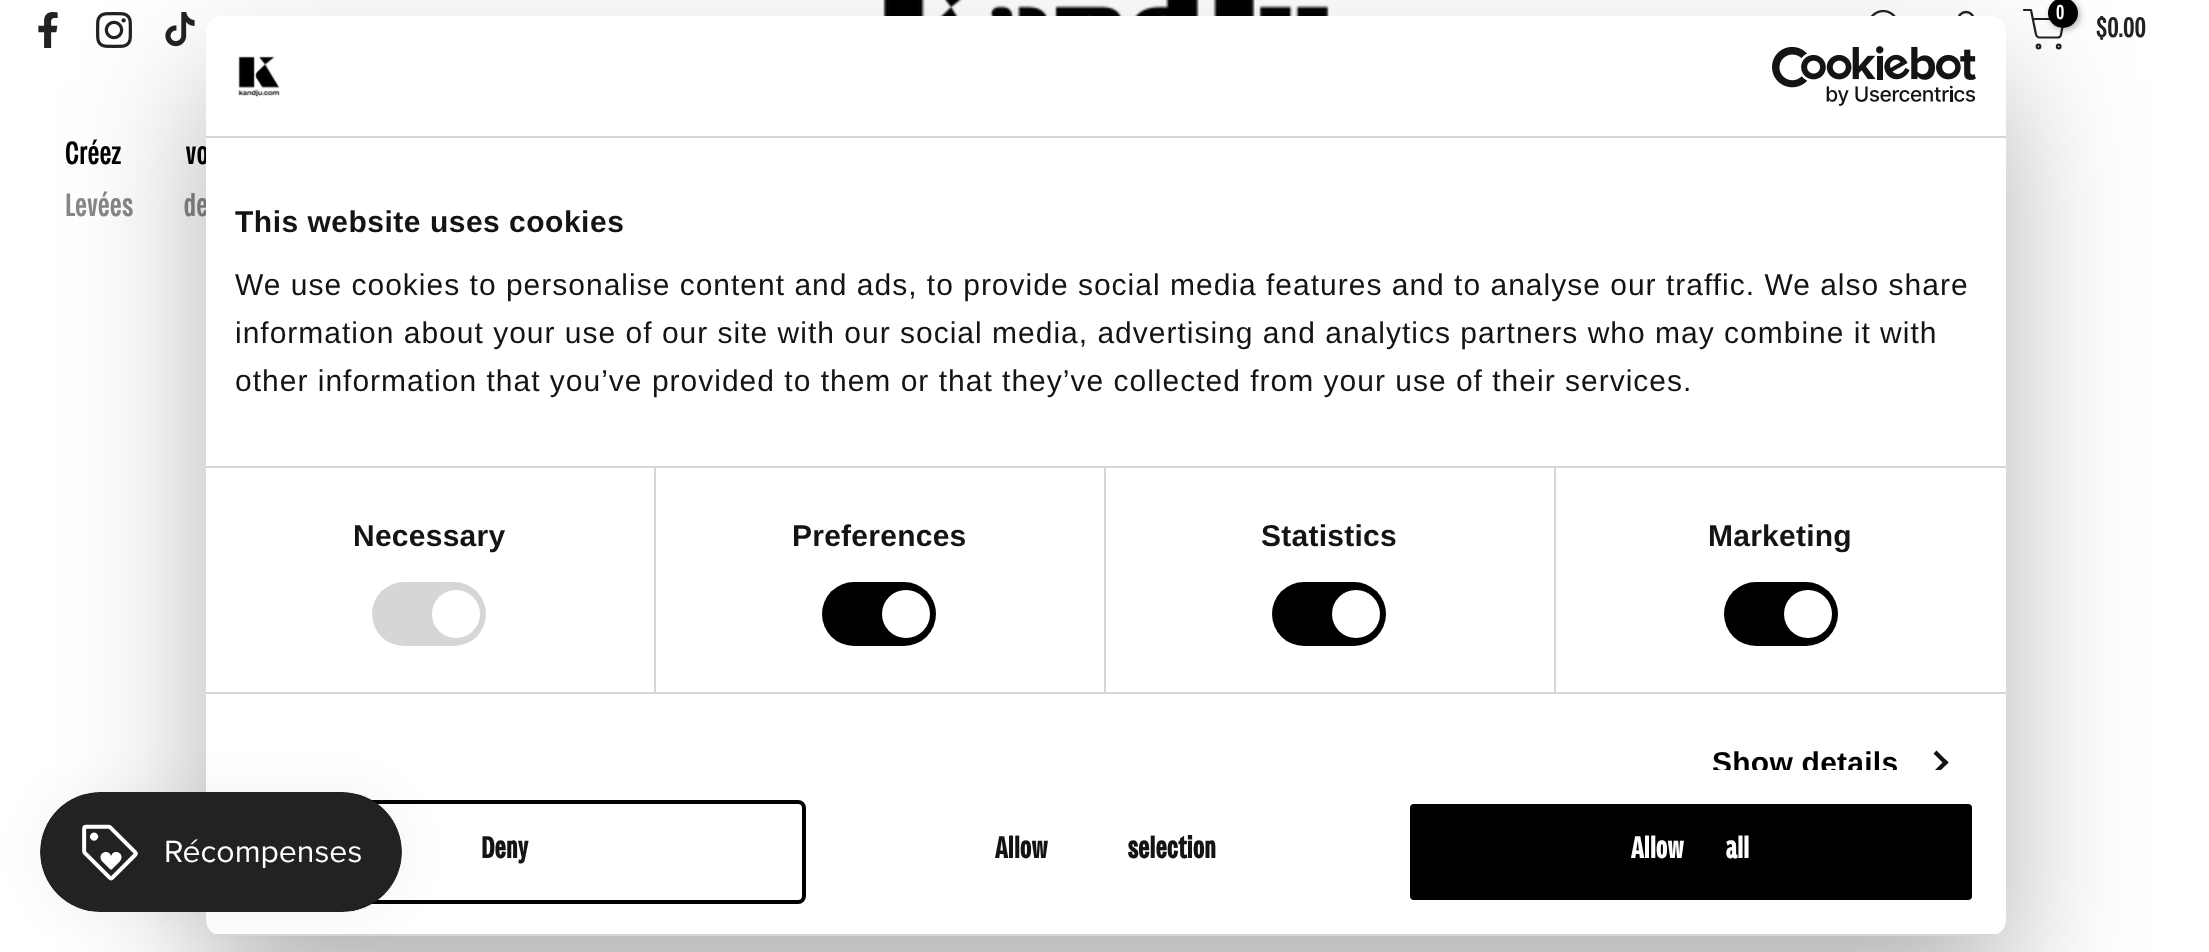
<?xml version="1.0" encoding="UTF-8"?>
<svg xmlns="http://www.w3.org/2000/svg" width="2209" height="952">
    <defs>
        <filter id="blur1" x="-50%" y="-200%" width="200%" height="500%"><feGaussianBlur stdDeviation="3"/></filter>
        <clipPath id="clip1"><rect x="2096" y="16" width="84" height="28"/></clipPath>
        <filter id="blur2" x="-50%" y="-200%" width="200%" height="500%"><feGaussianBlur stdDeviation="68"/></filter>
        <clipPath id="clip2"><rect x="206" y="138" width="1800" height="632"/></clipPath>
        <clipPath id="clip3"><rect x="206" y="16" width="1800" height="920" rx="16"/></clipPath>
        <filter id="blur3" x="-50%" y="-200%" width="200%" height="500%"><feGaussianBlur stdDeviation="25"/></filter>
    </defs>
    <rect width="100%" height="100%" fill="#FFFFFF"/>
    <image x="38" y="12" width="20" height="36" href="img_01.png"/>
    <image x="96" y="12" width="36" height="36" href="img_02.png"/>
    <image x="165" y="12" width="30" height="35" href="img_03.png"/>
    <image x="883" y="0" width="446" height="16" href="img_04.png"/>
    <image x="1870" y="9" width="26" height="7" href="img_05.png"/>
    <circle cx="1966" cy="20" r="8" fill="none" stroke="#222222" stroke-width="2.4"/>
    <path d="M 2024 10 H 2031 L 2036 34.5 C 2036.5 36 2038 37.5 2039.5 37.5 H 2057.5 C 2059.5 37.5 2061 36 2061 34.5 L 2064 19 H 2033" fill="none" stroke="#222222" stroke-width="2.2" stroke-linecap="round" stroke-linejoin="round"/>
    <rect x="2050" y="0" width="30" height="30" rx="15" fill="#000000" fill-opacity="0.3" filter="url(#blur1)"/>
    <circle cx="2063" cy="13" r="15" fill="#000000"/>
    <text x="2056" y="19" font-family="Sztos" font-size="20" fill="#FFFFFF">0</text>
    <circle cx="2038.5" cy="46.5" r="1.8" fill="none" stroke="#222222" stroke-width="2.2"/>
    <circle cx="2058.7" cy="46.5" r="1.8" fill="none" stroke="#222222" stroke-width="2.2"/>
    <g clip-path="url(#clip1)">
        <text x="2096" y="37" font-family="Sztos" font-size="28" fill="#222222">$0.00</text>
    </g>
    <text x="65" y="164" word-spacing="58" font-family="Sztos" font-size="32" fill="#000000">Créez vo</text>
    <text x="65" y="216" word-spacing="44" font-family="Sztos" font-size="32" fill="#878787">Levées de</text>
    <rect x="206" y="80" width="1800" height="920" rx="16" fill="#000000" fill-opacity="0.3" filter="url(#blur2)"/>
    <rect x="206" y="16" width="1800" height="920" rx="16" fill="#FFFFFF"/>
    <rect x="206" y="136" width="1800" height="2" fill="#D6D6D6"/>
    <image x="238" y="56" width="42" height="41" href="img_06.png"/>
    <image x="1772" y="46" width="204" height="60" href="img_07.png"/>
    <rect x="206" y="466" width="1800" height="2" fill="#D6D6D6"/>
    <text x="235" y="232" font-family="Liberation Sans" font-size="30" font-weight="700" letter-spacing="0.5" fill="#141414">This website uses cookies</text>
    <text font-family="Liberation Sans" font-size="30" letter-spacing="1" fill="#141414">
        <tspan x="235" y="295">We use cookies to personalise content and ads, to provide social media features and to analyse our traffic. We also share</tspan>
        <tspan x="235" y="343">information about your use of our site with our social media, advertising and analytics partners who may combine it with</tspan>
        <tspan x="235" y="391">other information that you’ve provided to them or that they’ve collected from your use of their services.</tspan>
    </text>
    <rect x="206" y="692" width="1800" height="2" fill="#D6D6D6"/>
    <rect x="654" y="468" width="2" height="224" fill="#D6D6D6"/>
    <text x="353" y="546" font-family="Liberation Sans" font-size="30" font-weight="700" letter-spacing="0.25" fill="#141414">Necessary</text>
    <rect x="372" y="582" width="114" height="64" rx="32" fill="#D6D6D6"/>
    <circle cx="456" cy="614" r="24" fill="#FFFFFF"/>
    <rect x="1104" y="468" width="2" height="224" fill="#D6D6D6"/>
    <text x="792" y="546" font-family="Liberation Sans" font-size="30" font-weight="700" letter-spacing="0.25" fill="#141414">Preferences</text>
    <rect x="822" y="582" width="114" height="64" rx="32" fill="#000000"/>
    <circle cx="906" cy="614" r="24" fill="#FFFFFF"/>
    <rect x="1554" y="468" width="2" height="224" fill="#D6D6D6"/>
    <text x="1261" y="546" font-family="Liberation Sans" font-size="30" font-weight="700" letter-spacing="0.25" fill="#141414">Statistics</text>
    <rect x="1272" y="582" width="114" height="64" rx="32" fill="#000000"/>
    <circle cx="1356" cy="614" r="24" fill="#FFFFFF"/>
    <text x="1708" y="546" font-family="Liberation Sans" font-size="30" font-weight="700" letter-spacing="0.25" fill="#141414">Marketing</text>
    <rect x="1724" y="582" width="114" height="64" rx="32" fill="#000000"/>
    <circle cx="1808" cy="614" r="24" fill="#FFFFFF"/>
    <g clip-path="url(#clip2)">
        <text x="1712" y="773" font-family="Liberation Sans" font-size="30" font-weight="700" letter-spacing="0.25" fill="#000000">Show details</text>
    </g>
    <path d="M 1936.5 750.5 L 1948.5 762.5 L 1945.5 765.5 L 1933.5 753.5 Z" fill="#141414"/>
    <g clip-path="url(#clip2)">
        <path d="M 1945.5 759.5 L 1948.5 762.5 L 1936.5 774.5 L 1933.5 771.5 Z" fill="#141414"/>
    </g>
    <g clip-path="url(#clip3)">
        <rect x="206" y="934" width="1800" height="2" fill="#D6D6D6"/>
    </g>
    <rect x="238" y="802" width="566" height="100" rx="6" fill="none" stroke="#000000" stroke-width="4"/>
    <text x="481" y="858" font-family="Sztos" font-size="30" font-weight="700" fill="#141414">Deny</text>
    <text x="995" y="858" word-spacing="74" font-family="Sztos" font-size="30" font-weight="700" fill="#141414">Allow selection</text>
    <rect x="1408" y="802" width="566" height="100" rx="6" fill="#000000" stroke="#FFFFFF" stroke-width="4"/>
    <text x="1631" y="858" word-spacing="36" font-family="Sztos" font-size="30" font-weight="700" fill="#FFFFFF">Allow all</text>
    <rect x="40" y="792" width="362" height="120" rx="60" fill="#000000" fill-opacity="0.05" filter="url(#blur3)"/>
    <image x="40" y="792" width="362" height="120" href="img_08.png"/>
</svg>
